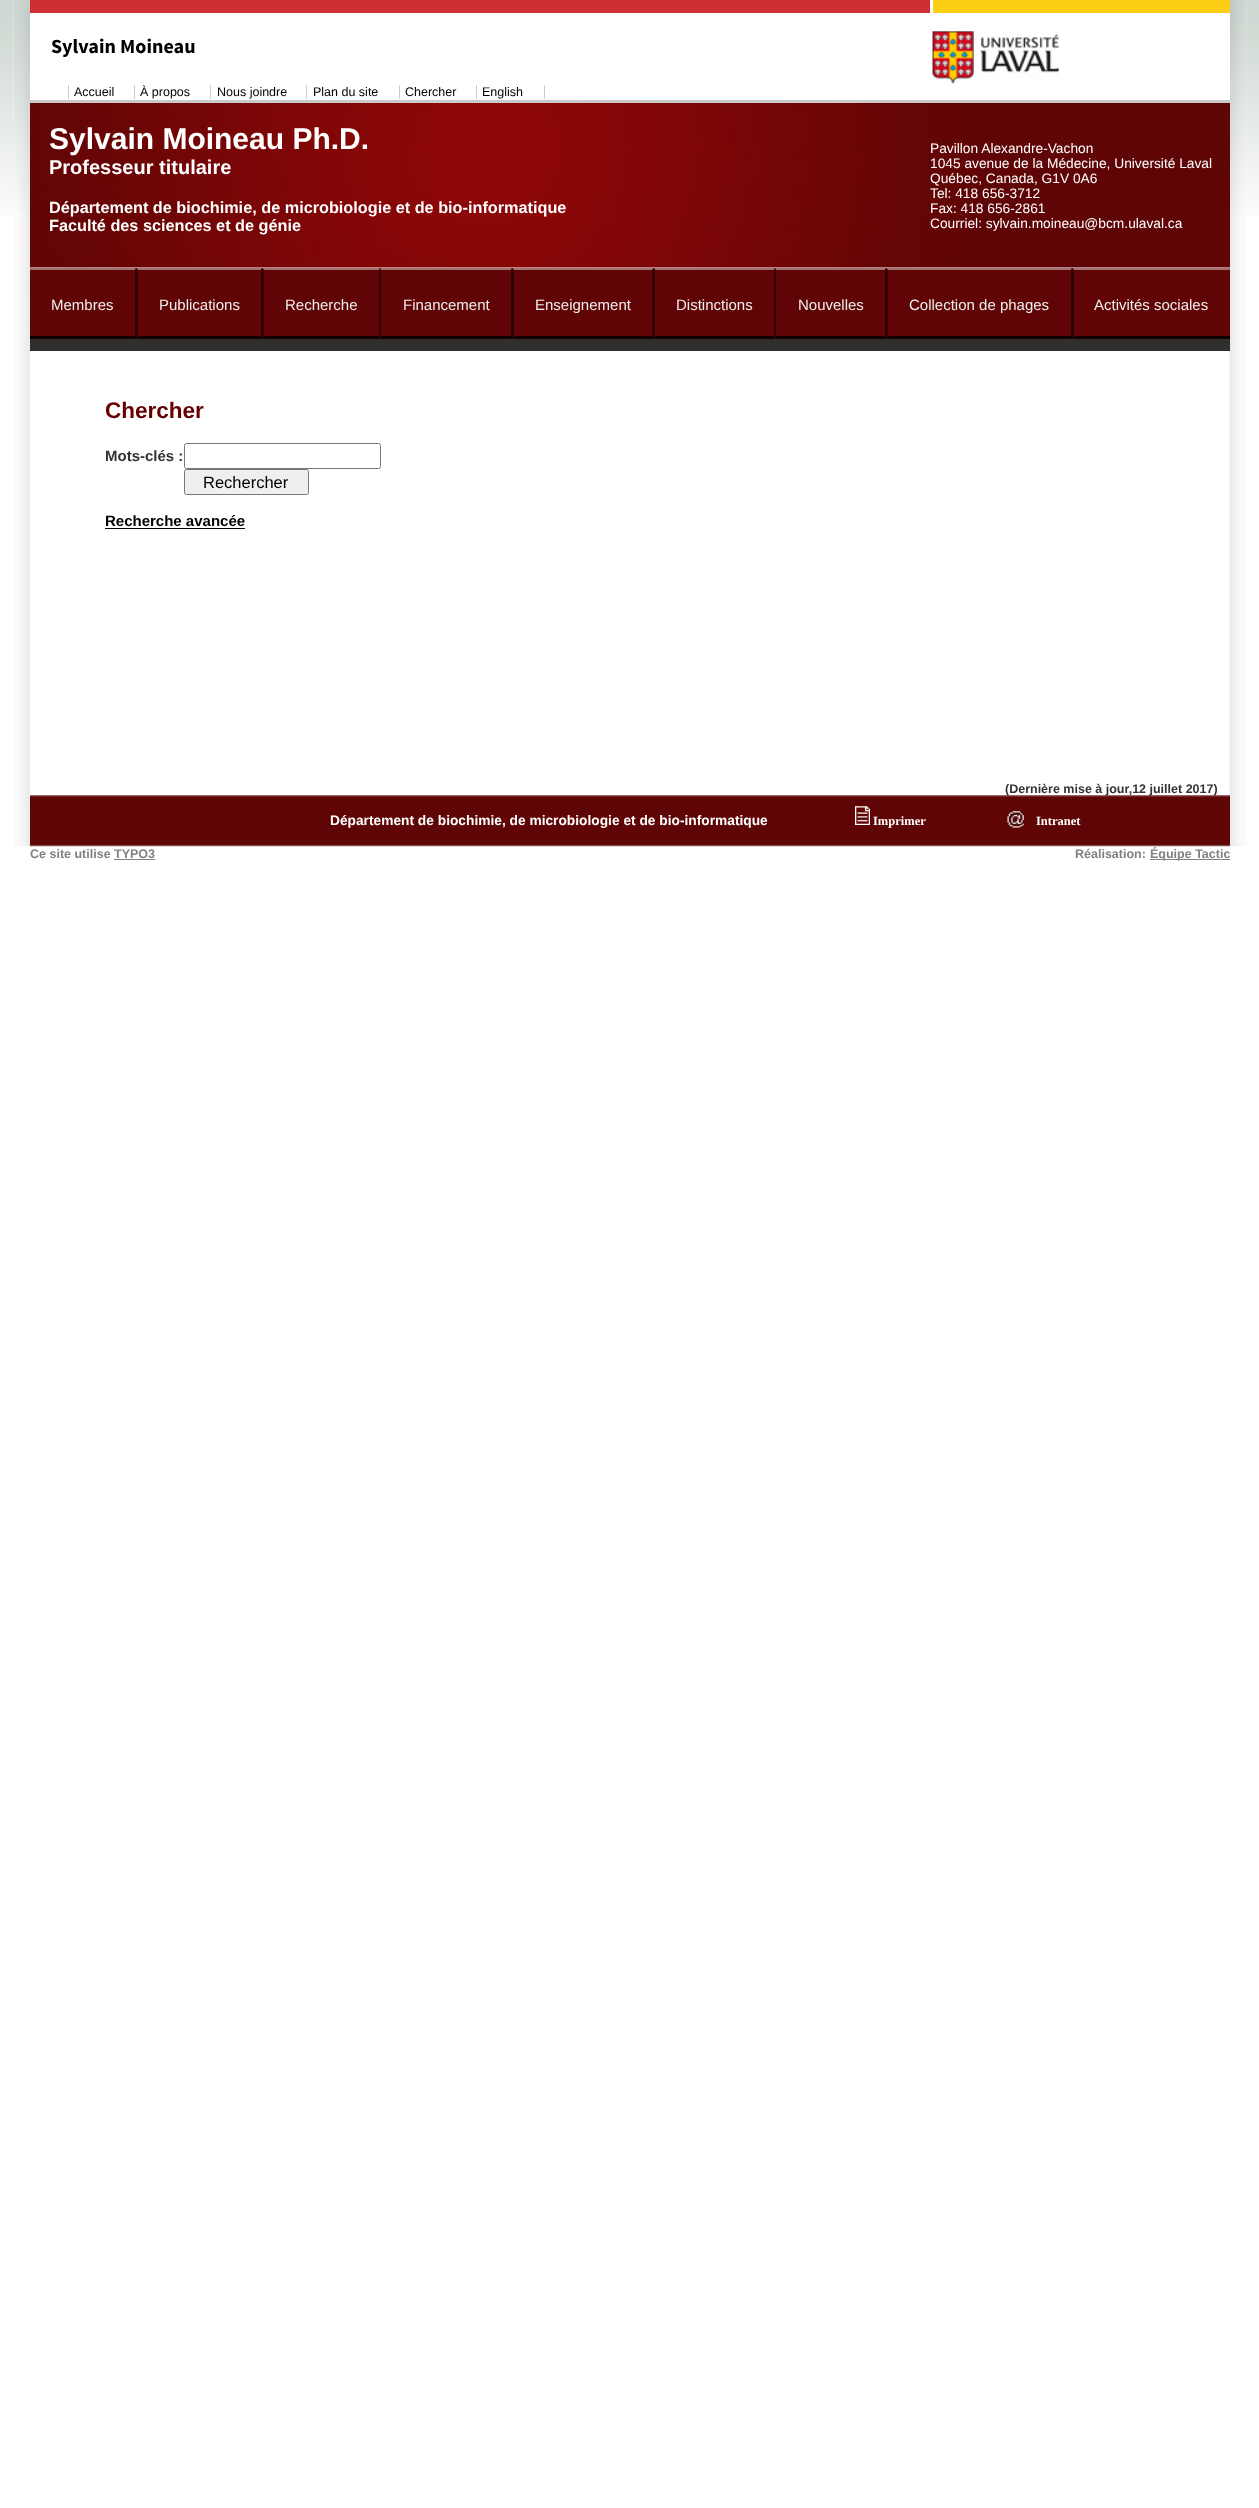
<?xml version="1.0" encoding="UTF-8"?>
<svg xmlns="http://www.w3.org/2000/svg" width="1259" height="2508">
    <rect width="100%" height="100%" fill="#FFFFFF"/>
    <image x="0" y="0" width="1259" height="217" href="img_01.png"/>
    <image x="13" y="0" width="1234" height="847" href="img_02.png"/>
    <image x="14" y="0" width="1232" height="210" href="img_03.png"/>
    <rect x="30" y="0" width="1200" height="100" fill="#FFFFFF"/>
    <rect x="30" y="100" width="1200" height="3" fill="#CACACA"/>
    <rect x="30" y="0" width="900" height="13" fill="#CC3033"/>
    <rect x="933" y="0" width="297" height="13" fill="#FECE16"/>
    <text x="51" y="53" font-family="Source Sans Pro" font-size="20" font-weight="700" fill="#000000">Sylvain Moineau</text>
    <image x="932" y="31" width="127" height="53" href="img_04.png"/>
    <text x="74" y="96" font-family="Liberation Sans" font-size="12.5" fill="#000000">Accueil</text>
    <rect x="134" y="85" width="1" height="14" fill="#CACACA"/>
    <rect x="68" y="85" width="1" height="14" fill="#CACACA"/>
    <text x="140" y="96" font-family="Liberation Sans" font-size="12.5" fill="#000000">À propos</text>
    <rect x="210" y="85" width="1" height="14" fill="#CACACA"/>
    <text x="217" y="96" font-family="Liberation Sans" font-size="12.5" fill="#000000">Nous joindre</text>
    <rect x="306" y="85" width="1" height="14" fill="#CACACA"/>
    <text x="313" y="96" font-family="Liberation Sans" font-size="12.5" fill="#000000">Plan du site</text>
    <rect x="399" y="85" width="1" height="14" fill="#CACACA"/>
    <text x="405" y="96" font-family="Liberation Sans" font-size="12.5" fill="#000000">Chercher</text>
    <rect x="476" y="85" width="1" height="14" fill="#CACACA"/>
    <text x="482" y="96" font-family="Liberation Sans" font-size="12.5" fill="#000000">English</text>
    <rect x="544" y="85" width="1" height="14" fill="#CACACA"/>
    <image x="30" y="103" width="1200" height="165" href="img_05.png"/>
    <text x="49" y="149" font-family="Liberation Sans" font-size="30" font-weight="700" fill="#FFFFFF">Sylvain Moineau Ph.D.</text>
    <text x="49" y="174" font-family="Liberation Sans" font-size="20" font-weight="700" fill="#FFFFFF">Professeur titulaire</text>
    <text font-family="Liberation Sans" font-size="16.25" font-weight="700" fill="#FFFFFF">
        <tspan x="49" y="213">Département de biochimie, de microbiologie et de bio-informatique</tspan>
        <tspan x="49" y="231">Faculté des sciences et de génie</tspan>
    </text>
    <text font-family="Liberation Sans" font-size="13.75" fill="#FFFFFF">
        <tspan x="930" y="153">Pavillon Alexandre-Vachon</tspan>
        <tspan x="930" y="168">1045 avenue de la Médecine, Université Laval</tspan>
        <tspan x="930" y="183">Québec, Canada, G1V 0A6</tspan>
        <tspan x="930" y="198">Tel: 418 656-3712</tspan>
        <tspan x="930" y="213">Fax: 418 656-2861</tspan>
        <tspan x="930" y="228">Courriel: sylvain.moineau@bcm.ulaval.ca</tspan>
    </text>
    <rect x="30" y="268" width="1200" height="71" fill="#600405"/>
    <path d="M 30 268 H 136 L 135 270 H 30 Z" fill="#A57273"/>
    <path d="M 136 268 V 339 L 135 336 V 270 Z" fill="#300000"/>
    <path d="M 136 339 H 30 V 336 H 135 Z" fill="#100000"/>
    <text x="51" y="310" font-family="Liberation Sans" font-size="15" fill="#EEEEEE">Membres</text>
    <path d="M 136 268 H 262 L 261 270 H 138 Z" fill="#A57273"/>
    <path d="M 262 268 V 339 L 261 336 V 270 Z" fill="#300000"/>
    <path d="M 262 339 H 136 L 138 336 H 261 Z" fill="#100000"/>
    <path d="M 136 339 V 268 L 138 270 V 336 Z" fill="#300000"/>
    <text x="159" y="310" font-family="Liberation Sans" font-size="15" fill="#EEEEEE">Publications</text>
    <path d="M 262 268 H 380 L 379 270 H 264 Z" fill="#A57273"/>
    <path d="M 380 268 V 339 L 379 336 V 270 Z" fill="#300000"/>
    <path d="M 380 339 H 262 L 264 336 H 379 Z" fill="#100000"/>
    <path d="M 262 339 V 268 L 264 270 V 336 Z" fill="#300000"/>
    <text x="285" y="310" font-family="Liberation Sans" font-size="15" fill="#EEEEEE">Recherche</text>
    <path d="M 380 268 H 512 L 511 270 H 381 Z" fill="#A57273"/>
    <path d="M 512 268 V 339 L 511 336 V 270 Z" fill="#300000"/>
    <path d="M 512 339 H 380 L 381 336 H 511 Z" fill="#100000"/>
    <path d="M 380 339 V 268 L 381 270 V 336 Z" fill="#300000"/>
    <text x="403" y="310" font-family="Liberation Sans" font-size="15" fill="#EEEEEE">Financement</text>
    <path d="M 512 268 H 654 L 652 270 H 514 Z" fill="#A57273"/>
    <path d="M 654 268 V 339 L 652 336 V 270 Z" fill="#300000"/>
    <path d="M 654 339 H 512 L 514 336 H 652 Z" fill="#100000"/>
    <path d="M 512 339 V 268 L 514 270 V 336 Z" fill="#300000"/>
    <text x="535" y="310" font-family="Liberation Sans" font-size="15" fill="#EEEEEE">Enseignement</text>
    <path d="M 654 268 H 775 L 774 270 H 655 Z" fill="#A57273"/>
    <path d="M 775 268 V 339 L 774 336 V 270 Z" fill="#300000"/>
    <path d="M 775 339 H 654 L 655 336 H 774 Z" fill="#100000"/>
    <path d="M 654 339 V 268 L 655 270 V 336 Z" fill="#300000"/>
    <text x="676" y="310" font-family="Liberation Sans" font-size="15" fill="#EEEEEE">Distinctions</text>
    <path d="M 775 268 H 886 L 885 270 H 776 Z" fill="#A57273"/>
    <path d="M 886 268 V 339 L 885 336 V 270 Z" fill="#300000"/>
    <path d="M 886 339 H 775 L 776 336 H 885 Z" fill="#100000"/>
    <path d="M 775 339 V 268 L 776 270 V 336 Z" fill="#300000"/>
    <text x="798" y="310" font-family="Liberation Sans" font-size="15" fill="#EEEEEE">Nouvelles</text>
    <path d="M 886 268 H 1072 L 1071 270 H 888 Z" fill="#A57273"/>
    <path d="M 1072 268 V 339 L 1071 336 V 270 Z" fill="#300000"/>
    <path d="M 1072 339 H 886 L 888 336 H 1071 Z" fill="#100000"/>
    <path d="M 886 339 V 268 L 888 270 V 336 Z" fill="#300000"/>
    <text x="909" y="310" font-family="Liberation Sans" font-size="15" fill="#EEEEEE">Collection de phages</text>
    <path d="M 1072 268 H 1230 V 270 H 1074 Z" fill="#A57273"/>
    <path d="M 1230 339 H 1072 L 1074 336 H 1230 Z" fill="#100000"/>
    <path d="M 1072 339 V 268 L 1074 270 V 336 Z" fill="#300000"/>
    <text x="1094" y="310" font-family="Liberation Sans" font-size="15" fill="#EEEEEE">Activités sociales</text>
    <rect x="30" y="339" width="1200" height="12" fill="#302F2D"/>
    <text x="105" y="418" font-family="Liberation Sans" font-size="22.5" font-weight="700" fill="#660000">Chercher</text>
    <text x="105" y="461" font-family="Liberation Sans" font-size="15" font-weight="700" fill="#333333">Mots-clés :</text>
    <rect x="184.5" y="443.5" width="196" height="25" rx="2" fill="none" stroke="#767676"/>
    <rect x="184.5" y="469.5" width="124" height="25" rx="2" fill="#EFEFEF" stroke="#767676"/>
    <text x="203" y="488" font-family="Liberation Sans" font-size="16.5" fill="#000000">Rechercher</text>
    <text x="105" y="526" font-family="Liberation Sans" font-size="15" font-weight="700" fill="#000000">Recherche avancée</text>
    <rect x="105" y="528" width="140" height="1" fill="#000000"/>
    <image x="30" y="795" width="1200" height="52" href="img_06.png"/>
    <text x="1005" y="793" font-family="Liberation Sans" font-size="12.5" font-weight="700" fill="#333333">(Dernière mise à jour,12 juillet 2017)</text>
    <text x="330" y="825" font-family="Liberation Sans" font-size="13.75" font-weight="700" fill="#FFFFFF">Département de biochimie, de microbiologie et de bio-informatique</text>
    <image x="855" y="806" width="15" height="19" href="img_07.png"/>
    <text x="873" y="825" font-family="Liberation Serif" font-size="12.5" font-weight="700" fill="#FFFFFF">Imprimer</text>
    <image x="1007" y="811" width="17" height="17" href="img_08.png"/>
    <text x="1036" y="825" font-family="Liberation Serif" font-size="12.5" font-weight="700" fill="#FFFFFF">Intranet</text>
    <text x="30" y="858" font-family="Liberation Sans" font-size="12.5" font-weight="700" fill="#818181">Ce site utilise TYPO3</text>
    <rect x="114" y="859" width="41" height="1" fill="#818181"/>
    <text x="1075" y="858" font-family="Liberation Sans" font-size="12.5" font-weight="700" fill="#818181">Réalisation:</text>
    <rect x="1150" y="859" width="80" height="1" fill="#818181"/>
    <text x="1150" y="858" font-family="Liberation Sans" font-size="12.5" font-weight="700" fill="#818181">Équipe Tactic</text>
</svg>
